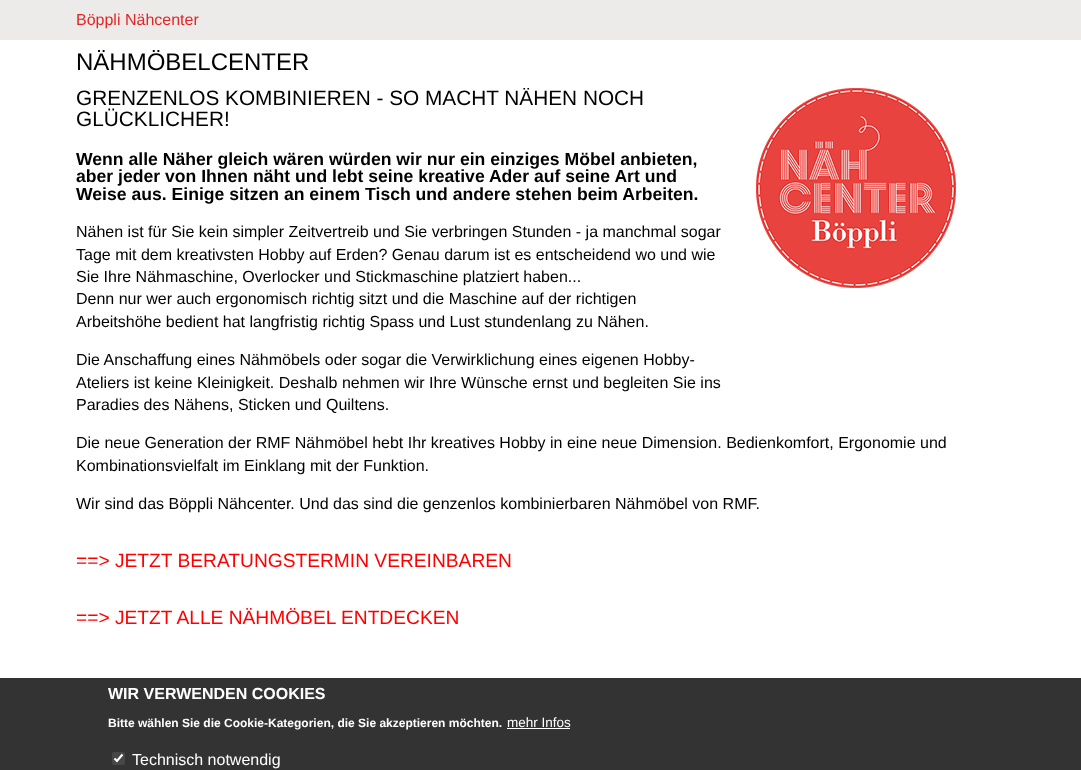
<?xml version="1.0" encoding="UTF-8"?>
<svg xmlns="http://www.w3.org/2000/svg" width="1081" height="770">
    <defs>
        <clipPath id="clip1"><rect x="76" y="88" width="930" height="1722"/></clipPath>
    </defs>
    <rect width="100%" height="100%" fill="#FFFFFF"/>
    <rect x="0" y="0" width="1081" height="40" fill="#EDEAEA"/>
    <text x="76" y="25" font-family="Liberation Sans" font-size="16" fill="#E12726">Böppli Nähcenter</text>
    <text x="76" y="70" font-family="Liberation Sans" font-size="24" fill="#000000">NÄHMÖBELCENTER</text>
    <g clip-path="url(#clip1)">
        <text x="76" y="105" font-family="Liberation Sans" font-size="20.8" fill="#000000">GRENZENLOS KOMBINIEREN - SO MACHT NÄHEN NOCH</text>
    </g>
    <text x="76" y="126" font-family="Liberation Sans" font-size="20.8" fill="#000000">GLÜCKLICHER!</text>
    <g clip-path="url(#clip1)">
        <text x="76" y="165" font-family="Liberation Sans" font-size="17.6" font-weight="700" fill="#000000">Wenn alle Näher gleich wären würden wir nur ein einziges Möbel anbieten,</text>
    </g>
    <text x="76" y="182" font-family="Liberation Sans" font-size="17.6" font-weight="700" fill="#000000">aber jeder von Ihnen näht und lebt seine kreative Ader auf seine Art und</text>
    <g clip-path="url(#clip1)">
        <text x="76" y="200" font-family="Liberation Sans" font-size="17.6" font-weight="700" fill="#000000">Weise aus. Einige sitzen an einem Tisch und andere stehen beim Arbeiten.</text>
    </g>
    <text font-family="Liberation Sans" font-size="16" fill="#000000">
        <tspan x="76" y="237">Nähen ist für Sie kein simpler Zeitvertreib und Sie verbringen Stunden - ja manchmal sogar</tspan>
        <tspan x="76" y="260">Tage mit dem kreativsten Hobby auf Erden? Genau darum ist es entscheidend wo und wie</tspan>
        <tspan x="76" y="282">Sie Ihre Nähmaschine, Overlocker und Stickmaschine platziert haben...</tspan>
        <tspan x="76" y="304">Denn nur wer auch ergonomisch richtig sitzt und die Maschine auf der richtigen</tspan>
        <tspan x="76" y="327">Arbeitshöhe bedient hat langfristig richtig Spass und Lust stundenlang zu Nähen.</tspan>
    </text>
    <text font-family="Liberation Sans" font-size="16" fill="#000000">
        <tspan x="76" y="365">Die Anschaffung eines Nähmöbels oder sogar die Verwirklichung eines eigenen Hobby-</tspan>
        <tspan x="76" y="388">Ateliers ist keine Kleinigkeit. Deshalb nehmen wir Ihre Wünsche ernst und begleiten Sie ins</tspan>
        <tspan x="76" y="410">Paradies des Nähens, Sticken und Quiltens.</tspan>
    </text>
    <text font-family="Liberation Sans" font-size="16" fill="#000000">
        <tspan x="76" y="448">Die neue Generation der RMF Nähmöbel hebt Ihr kreatives Hobby in eine neue Dimension. Bedienkomfort, Ergonomie und</tspan>
        <tspan x="76" y="471">Kombinationsvielfalt im Einklang mit der Funktion.</tspan>
    </text>
    <text x="76" y="509" font-family="Liberation Sans" font-size="16" fill="#000000">Wir sind das Böppli Nähcenter. Und das sind die genzenlos kombinierbaren Nähmöbel von RMF.</text>
    <text x="76" y="567" font-family="Liberation Sans" font-size="19.2" fill="#FF0000">==&gt; JETZT BERATUNGSTERMIN VEREINBAREN</text>
    <text x="76" y="624" font-family="Liberation Sans" font-size="19.2" fill="#FF0000">==&gt; JETZT ALLE NÄHMÖBEL ENTDECKEN</text>
    <image x="756" y="88" width="200" height="200" href="img_01.png"/>
    <rect x="0" y="678" width="1081" height="92" fill="#333333"/>
    <text x="108" y="699" font-family="Liberation Sans" font-size="16" font-weight="700" fill="#FFFFFF">WIR VERWENDEN COOKIES</text>
    <text x="108" y="727" font-family="Liberation Sans" font-size="12" font-weight="700" fill="#FFFFFF">Bitte wählen Sie die Cookie-Kategorien, die Sie akzeptieren möchten.</text>
    <text x="507" y="727" font-family="Liberation Sans" font-size="13.5" fill="#FFFFFF">mehr Infos</text>
    <rect x="507" y="728" width="63" height="1" fill="#FFFFFF"/>
    <rect x="112" y="752" width="13" height="13" rx="2" fill="#474747"/>
    <path d="M 114.5 758.5 L 117 761 L 122.5 754.5" fill="none" stroke="#FFFFFF" stroke-width="2.1"/>
    <text x="132" y="765" font-family="Liberation Sans" font-size="16" fill="#FFFFFF">Technisch notwendig</text>
</svg>
